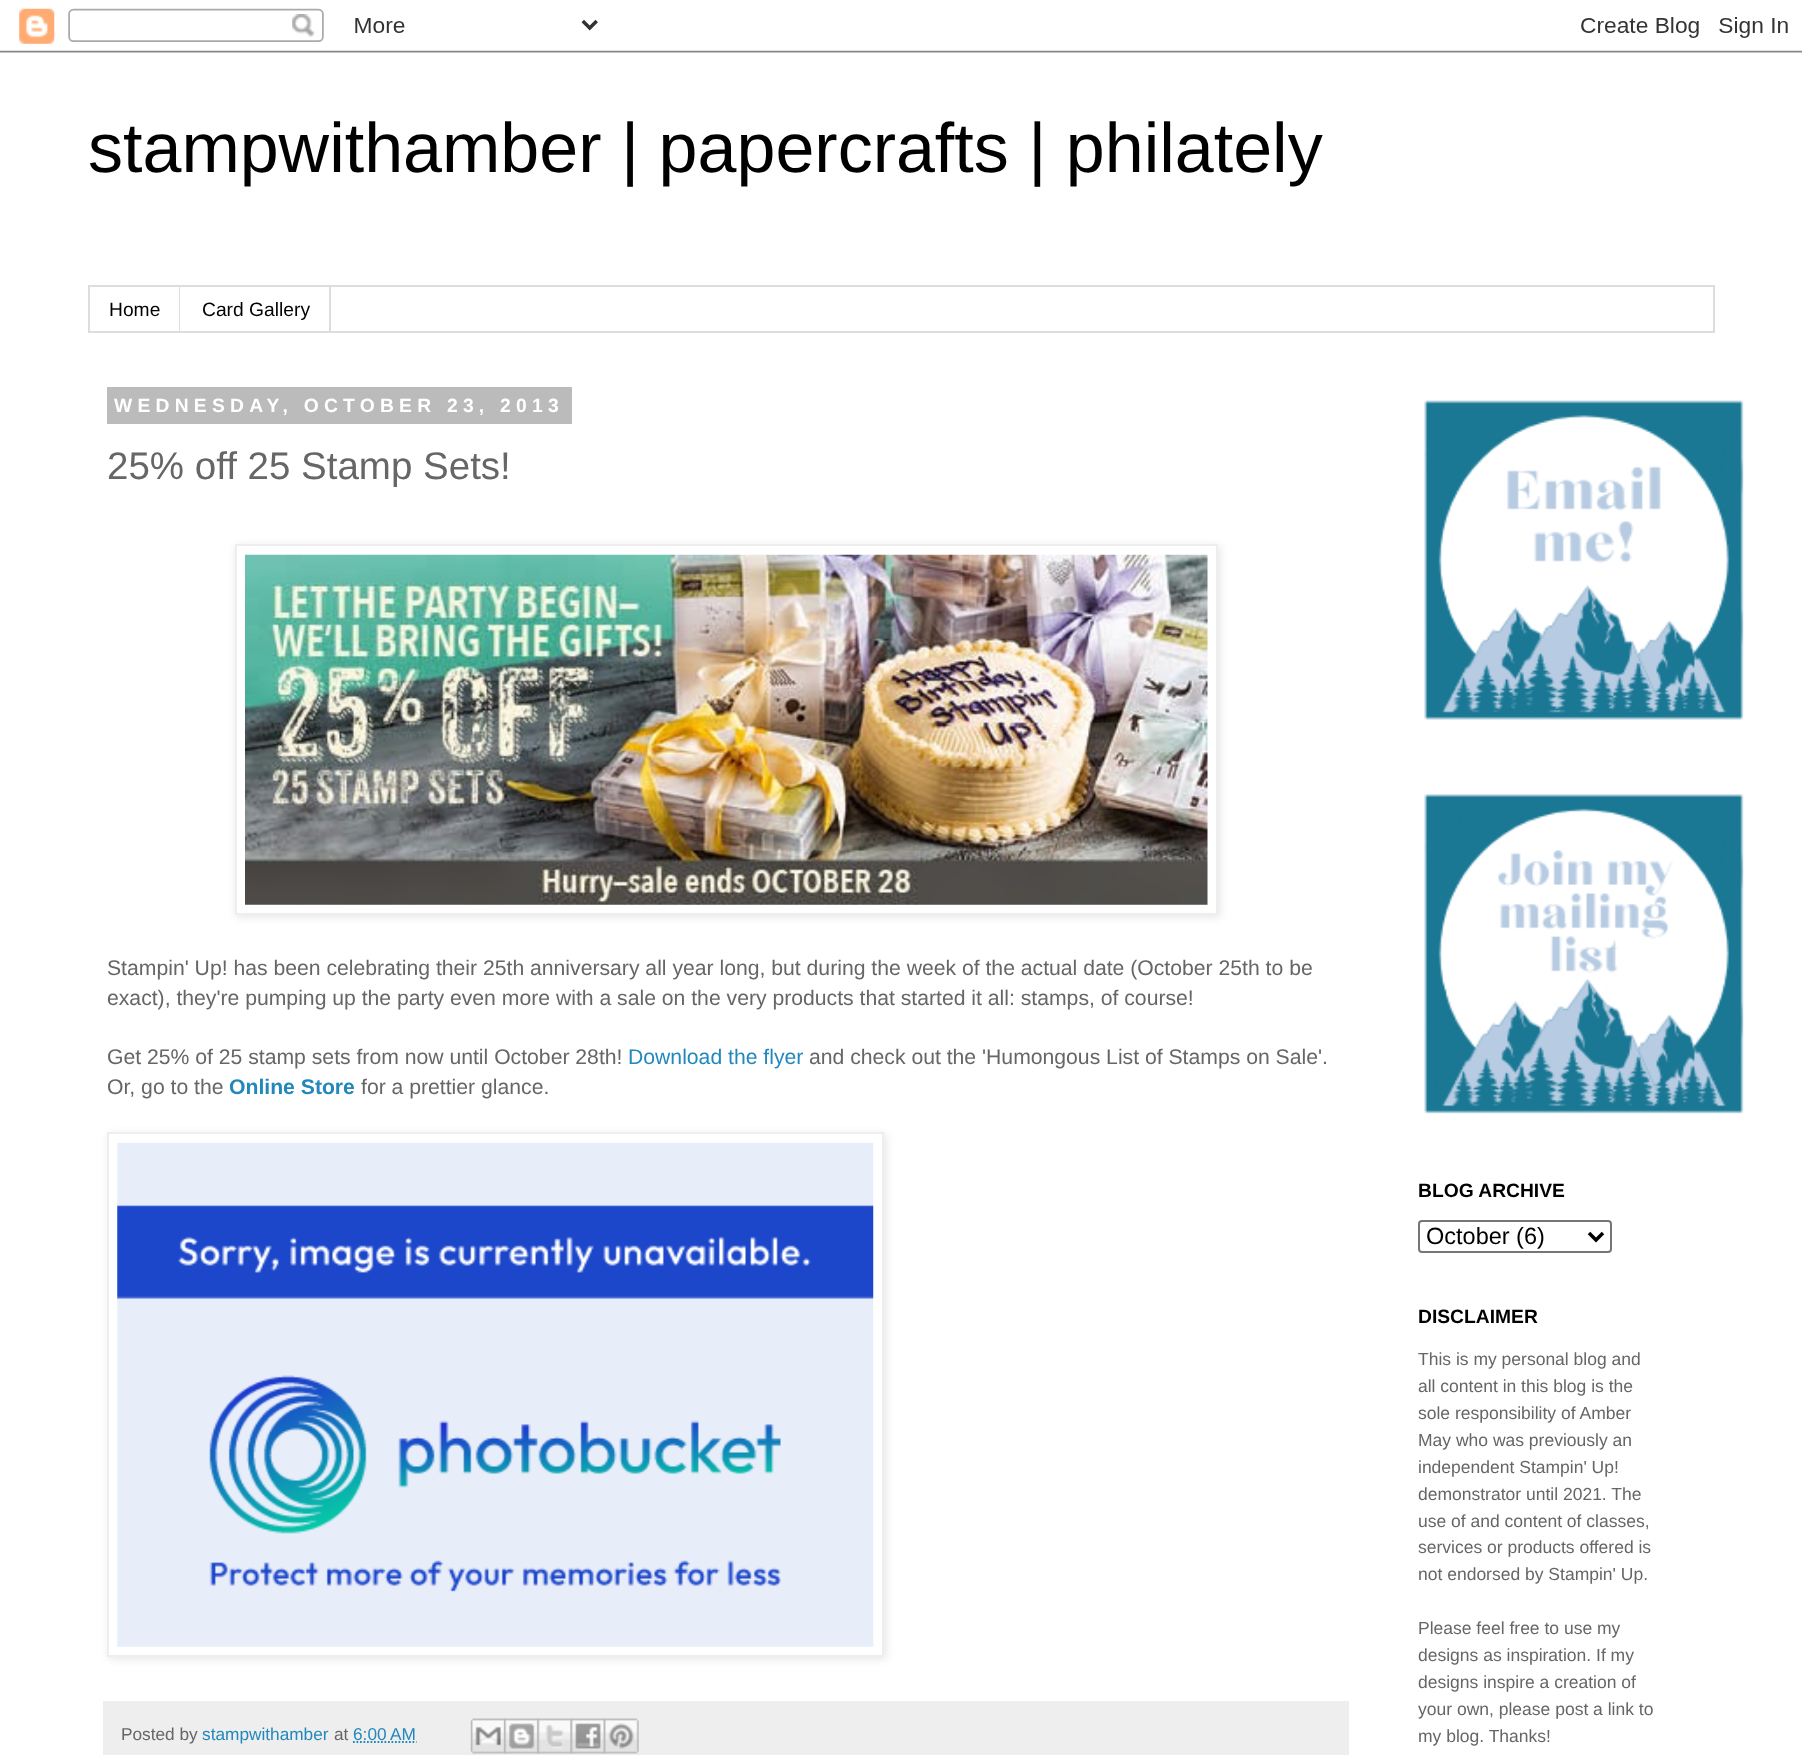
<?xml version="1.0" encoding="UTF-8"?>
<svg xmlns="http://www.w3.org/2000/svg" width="1802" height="1755">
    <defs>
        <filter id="blur1" x="-50%" y="-200%" width="200%" height="500%"><feGaussianBlur stdDeviation="4.5"/></filter>
    </defs>
    <rect width="100%" height="100%" fill="#FFFFFF"/>
    <image x="0" y="8" width="1802" height="45" href="img_01.png"/>
    <text x="88" y="172" font-family="Liberation Sans" font-size="70" fill="#000000">stampwithamber | papercrafts | philately</text>
    <rect x="89" y="286" width="1625" height="46" fill="none" stroke="#DDDDDD" stroke-width="2"/>
    <rect x="179" y="287" width="1" height="44" fill="#DDDDDD"/>
    <text x="109" y="316" font-family="Liberation Sans" font-size="19.25" fill="#000000">Home</text>
    <rect x="329" y="287" width="2" height="44" fill="#DDDDDD"/>
    <text x="202" y="316" font-family="Liberation Sans" font-size="19.25" fill="#000000">Card Gallery</text>
    <rect x="107" y="387" width="465" height="37" fill="#BBBBBB"/>
    <text x="114" y="412" font-family="Liberation Sans" font-size="19.25" font-weight="700" letter-spacing="5.25" fill="#FFFFFF">WEDNESDAY, OCTOBER 23, 2013</text>
    <text x="107" y="479" font-family="Liberation Sans" font-size="38.5" fill="#666666">25% off 25 Stamp Sets!</text>
    <rect x="236" y="546" width="984" height="371" fill="#000000" fill-opacity="0.1" filter="url(#blur1)"/>
    <rect x="236" y="545" width="981" height="369" fill="#FFFFFF" stroke="#EEEEEE" stroke-width="2"/>
    <image x="245" y="554" width="963" height="351" href="img_02.png"/>
    <text font-family="Liberation Sans" font-size="21.18" fill="#666666">
        <tspan x="107" y="975">Stampin' Up! has been celebrating their 25th anniversary all year long, but during the week of the actual date (October 25th to be</tspan>
        <tspan x="107" y="1005">exact), they're pumping up the party even more with a sale on the very products that started it all: stamps, of course!</tspan>
    </text>
    <text x="107" y="1064" font-family="Liberation Sans" font-size="21.18" fill="#666666">Get 25% of 25 stamp sets from now until October 28th!</text>
    <text x="628" y="1064" font-family="Liberation Sans" font-size="21.18" fill="#2288BB">Download the flyer</text>
    <text x="809" y="1064" font-family="Liberation Sans" font-size="21.18" fill="#666666">and check out the 'Humongous List of Stamps on Sale'.</text>
    <text x="107" y="1094" font-family="Liberation Sans" font-size="21.18" fill="#666666">Or, go to the</text>
    <text x="229" y="1094" font-family="Liberation Sans" font-size="21.18" font-weight="700" fill="#2288BB">Online Store</text>
    <text x="361" y="1094" font-family="Liberation Sans" font-size="21.18" fill="#666666">for a prettier glance.</text>
    <rect x="109" y="1134" width="777" height="525" fill="#000000" fill-opacity="0.1" filter="url(#blur1)"/>
    <rect x="108" y="1133" width="775" height="523" fill="#FFFFFF" stroke="#EEEEEE" stroke-width="2"/>
    <image x="117" y="1142" width="757" height="505" href="img_03.png"/>
    <rect x="103" y="1701" width="1246" height="54" fill="#EEEEEE"/>
    <text x="121" y="1740" font-family="Liberation Sans" font-size="17.25" fill="#666666">Posted by</text>
    <text x="202" y="1740" font-family="Liberation Sans" font-size="17.25" fill="#2288BB">stampwithamber</text>
    <text x="334" y="1740" font-family="Liberation Sans" font-size="17.25" fill="#666666">at</text>
    <text x="353" y="1740" font-family="Liberation Sans" font-size="17.25" fill="#2288BB">6:00 AM</text>
    <path d="M 353 1742 H 416.5" fill="none" stroke="#2288BB" stroke-width="1.8" stroke-dasharray="1.75 1.75"/>
    <image x="470" y="1718" width="36" height="36" href="img_04.png"/>
    <image x="504" y="1718" width="35" height="36" href="img_05.png"/>
    <image x="537" y="1718" width="36" height="36" href="img_06.png"/>
    <image x="570" y="1718" width="36" height="36" href="img_07.png"/>
    <image x="603" y="1718" width="36" height="36" href="img_08.png"/>
    <image x="1424" y="400" width="320" height="320" href="img_09.png"/>
    <image x="1424" y="794" width="320" height="320" href="img_10.png"/>
    <text x="1418" y="1197" font-family="Liberation Sans" font-size="19.25" font-weight="700" fill="#000000">BLOG ARCHIVE</text>
    <rect x="1419" y="1221" width="192" height="31" rx="3" fill="none" stroke="#767676" stroke-width="2"/>
    <path d="M 1589 1233 L 1596 1240 L 1603 1233" fill="none" stroke="#000000" stroke-width="3.5"/>
    <text x="1426" y="1244" font-family="Liberation Sans" font-size="23.5" fill="#000000">October (6)</text>
    <text x="1418" y="1323" font-family="Liberation Sans" font-size="19.25" font-weight="700" fill="#000000">DISCLAIMER</text>
    <text font-family="Liberation Sans" font-size="17.5" fill="#666666">
        <tspan x="1418" y="1365">This is my personal blog and</tspan>
        <tspan x="1418" y="1392">all content in this blog is the</tspan>
        <tspan x="1418" y="1419">sole responsibility of Amber</tspan>
        <tspan x="1418" y="1446">May who was previously an</tspan>
        <tspan x="1418" y="1473">independent Stampin' Up!</tspan>
        <tspan x="1418" y="1500">demonstrator until 2021. The</tspan>
        <tspan x="1418" y="1527">use of and content of classes,</tspan>
        <tspan x="1418" y="1553">services or products offered is</tspan>
        <tspan x="1418" y="1580">not endorsed by Stampin' Up.</tspan>
    </text>
    <text font-family="Liberation Sans" font-size="17.5" fill="#666666">
        <tspan x="1418" y="1634">Please feel free to use my</tspan>
        <tspan x="1418" y="1661">designs as inspiration. If my</tspan>
        <tspan x="1418" y="1688">designs inspire a creation of</tspan>
        <tspan x="1418" y="1715">your own, please post a link to</tspan>
        <tspan x="1418" y="1742">my blog. Thanks!</tspan>
    </text>
</svg>
